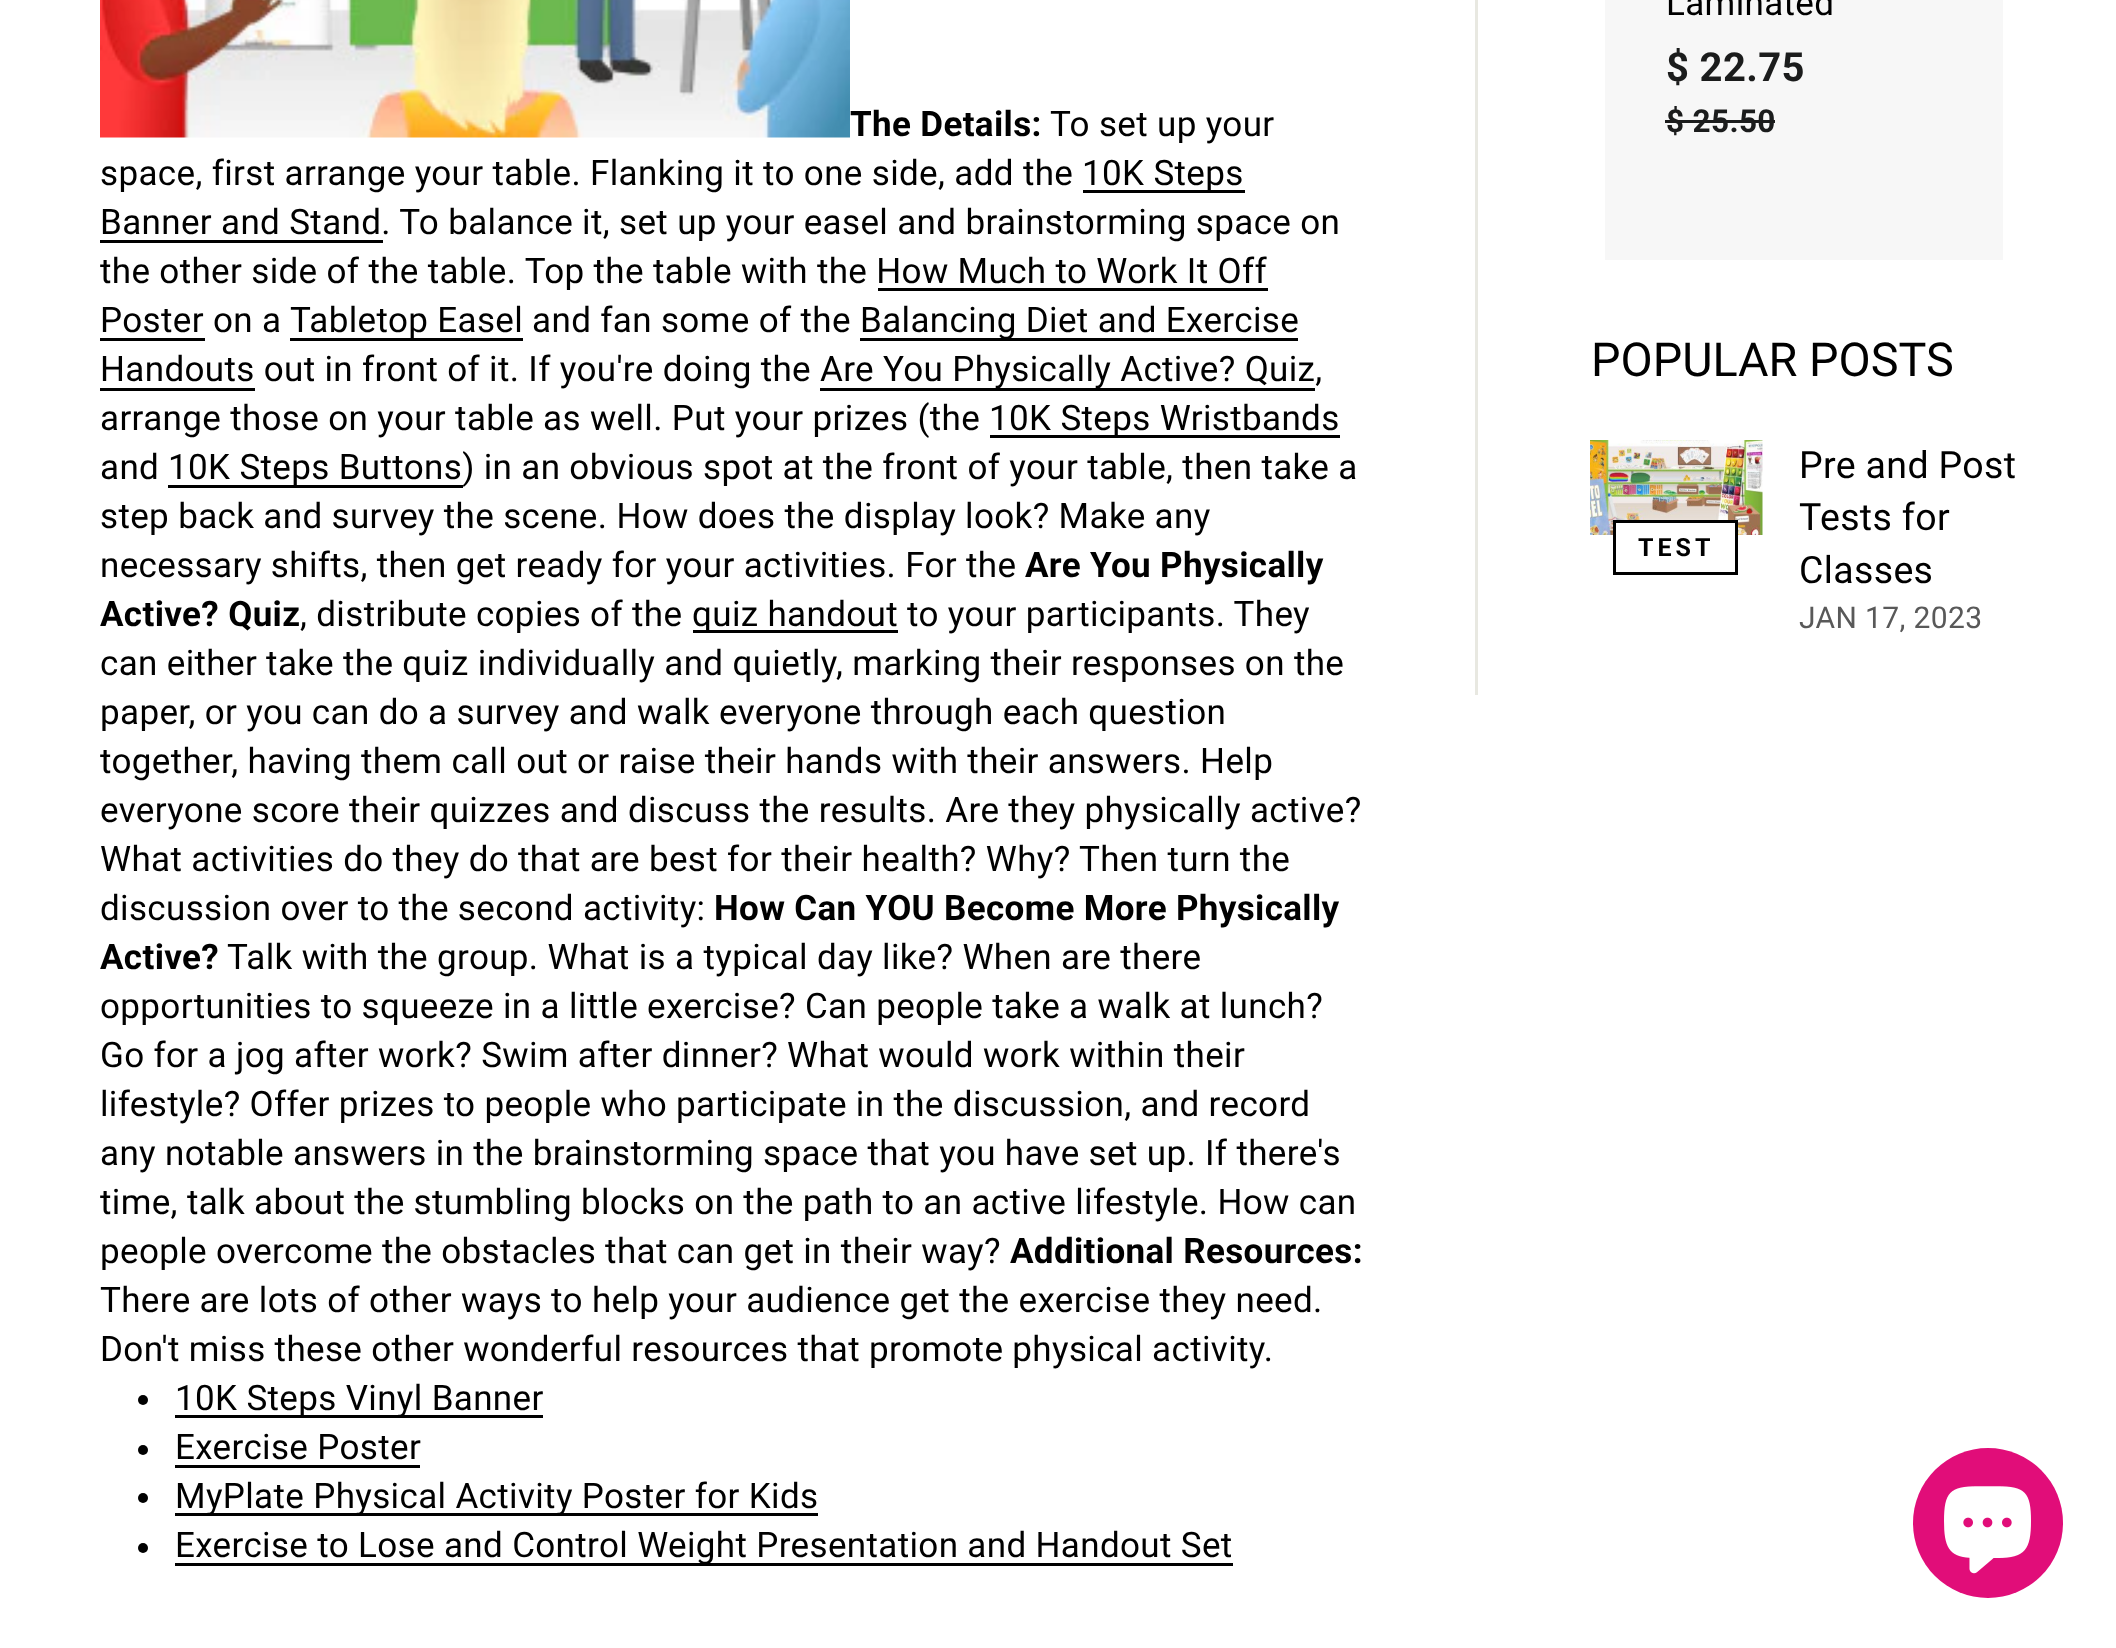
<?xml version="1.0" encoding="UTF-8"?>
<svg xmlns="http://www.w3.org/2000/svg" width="2116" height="1648">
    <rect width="100%" height="100%" fill="#FFFFFF"/>
    <rect x="1605" y="0" width="398" height="260" fill="#F7F7F7"/>
    <image x="100" y="0" width="750" height="138" href="img_01.png"/>
    <text x="850" y="136" font-family="Roboto" font-size="35" font-weight="700" letter-spacing="0.35" fill="#000000">The Details:</text>
    <text x="1050" y="136" font-family="Roboto" font-size="35" letter-spacing="0.35" fill="#000000">To set up your</text>
    <text x="100" y="185" font-family="Roboto" font-size="35" letter-spacing="0.35" fill="#000000">space, first arrange your table. Flanking it to one side, add the</text>
    <rect x="1083" y="190" width="162" height="3" fill="#000000"/>
    <text x="1082" y="185" font-family="Roboto" font-size="35" letter-spacing="0.35" fill="#000000">10K Steps</text>
    <rect x="100" y="240" width="283" height="3" fill="#000000"/>
    <text font-family="Roboto" font-size="35" letter-spacing="0.35" fill="#000000">
        <tspan x="100" y="234">Banner and Stand. To balance it, set up your easel and brainstorming space on</tspan>
        <tspan x="100" y="283">the other side of the table. Top the table with the How Much to Work It Off</tspan>
        <tspan x="100" y="332">Poster on a</tspan>
    </text>
    <rect x="878" y="288" width="390" height="3" fill="#000000"/>
    <rect x="100" y="338" width="105" height="3" fill="#000000"/>
    <rect x="290" y="338" width="233" height="3" fill="#000000"/>
    <text x="290" y="332" font-family="Roboto" font-size="35" letter-spacing="0.35" fill="#000000">Tabletop Easel and fan some of the</text>
    <rect x="860" y="338" width="438" height="3" fill="#000000"/>
    <text x="860" y="332" font-family="Roboto" font-size="35" letter-spacing="0.35" fill="#000000">Balancing Diet and Exercise</text>
    <rect x="100" y="388" width="155" height="3" fill="#000000"/>
    <text x="100" y="381" font-family="Roboto" font-size="35" letter-spacing="0.35" fill="#000000">Handouts out in front of it. If you're doing the</text>
    <rect x="820" y="388" width="495" height="3" fill="#000000"/>
    <text x="820" y="381" font-family="Roboto" font-size="35" letter-spacing="0.35" fill="#000000">Are You Physically Active? Quiz,</text>
    <text x="100" y="430" font-family="Roboto" font-size="35" letter-spacing="0.35" fill="#000000">arrange those on your table as well. Put your prizes (the</text>
    <rect x="990" y="435" width="350" height="3" fill="#000000"/>
    <text x="989" y="430" font-family="Roboto" font-size="35" letter-spacing="0.35" fill="#000000">10K Steps Wristbands</text>
    <text x="100" y="479" font-family="Roboto" font-size="35" letter-spacing="0.35" fill="#000000">and</text>
    <rect x="168" y="485" width="295" height="3" fill="#000000"/>
    <text x="168" y="479" font-family="Roboto" font-size="35" letter-spacing="0.35" fill="#000000">10K Steps Buttons) in an obvious spot at the front of your table, then take a</text>
    <text font-family="Roboto" font-size="35" letter-spacing="0.35" fill="#000000">
        <tspan x="100" y="528">step back and survey the scene. How does the display look? Make any</tspan>
        <tspan x="100" y="577">necessary shifts, then get ready for your activities. For the</tspan>
    </text>
    <text x="1025" y="577" font-family="Roboto" font-size="35" font-weight="700" letter-spacing="0.35" fill="#000000">Are You Physically</text>
    <text x="100" y="626" font-family="Roboto" font-size="35" font-weight="700" letter-spacing="0.35" fill="#000000">Active? Quiz</text>
    <text x="300" y="626" font-family="Roboto" font-size="35" letter-spacing="0.35" fill="#000000">, distribute copies of the</text>
    <rect x="693" y="630" width="205" height="3" fill="#000000"/>
    <text x="692" y="626" font-family="Roboto" font-size="35" letter-spacing="0.35" fill="#000000">quiz handout to your participants. They</text>
    <text font-family="Roboto" font-size="35" letter-spacing="0.35" fill="#000000">
        <tspan x="100" y="675">can either take the quiz individually and quietly, marking their responses on the</tspan>
        <tspan x="100" y="724">paper, or you can do a survey and walk everyone through each question</tspan>
        <tspan x="100" y="773">together, having them call out or raise their hands with their answers. Help</tspan>
        <tspan x="100" y="822">everyone score their quizzes and discuss the results. Are they physically active?</tspan>
        <tspan x="100" y="871">What activities do they do that are best for their health? Why?</tspan>
    </text>
    <text x="1079" y="871" font-family="Roboto" font-size="35" letter-spacing="0.35" fill="#000000">Then turn the</text>
    <text x="100" y="920" font-family="Roboto" font-size="35" letter-spacing="0.35" fill="#000000">discussion over to the second activity:</text>
    <text x="714" y="920" font-family="Roboto" font-size="35" font-weight="700" letter-spacing="0.35" fill="#000000">How Can YOU Become More Physically</text>
    <text x="100" y="969" font-family="Roboto" font-size="35" font-weight="700" letter-spacing="0.35" fill="#000000">Active?</text>
    <text x="227" y="969" font-family="Roboto" font-size="35" letter-spacing="0.35" fill="#000000">Talk with the group. What is a typical day like? When are there</text>
    <text font-family="Roboto" font-size="35" letter-spacing="0.35" fill="#000000">
        <tspan x="100" y="1018">opportunities to squeeze in a little exercise? Can people take a walk at lunch?</tspan>
        <tspan x="100" y="1067">Go for a jog after work? Swim after dinner? What would work within their</tspan>
        <tspan x="100" y="1116">lifestyle? Offer prizes to people who participate in the discussion, and record</tspan>
        <tspan x="100" y="1165">any notable answers in the brainstorming space that you have set up. If there's</tspan>
        <tspan x="100" y="1214">time, talk about the stumbling blocks on the path to an active lifestyle. How can</tspan>
        <tspan x="100" y="1263">people overcome the obstacles that can get in their way?</tspan>
    </text>
    <text x="1010" y="1263" font-family="Roboto" font-size="35" font-weight="700" letter-spacing="0.35" fill="#000000">Additional Resources:</text>
    <text font-family="Roboto" font-size="35" letter-spacing="0.35" fill="#000000">
        <tspan x="100" y="1312">There are lots of other ways to help your audience get the exercise they need.</tspan>
        <tspan x="100" y="1361">Don't miss these other wonderful resources that promote physical activity.</tspan>
    </text>
    <circle cx="143" cy="1400" r="5" fill="#000000"/>
    <rect x="175" y="1415" width="368" height="3" fill="#000000"/>
    <text x="175" y="1410" font-family="Roboto" font-size="35" letter-spacing="0.35" fill="#000000">10K Steps Vinyl Banner</text>
    <circle cx="143" cy="1450" r="5" fill="#000000"/>
    <text x="175" y="1459" font-family="Roboto" font-size="35" letter-spacing="0.35" fill="#000000">Exercise Poster</text>
    <rect x="175" y="1465" width="245" height="3" fill="#000000"/>
    <circle cx="143" cy="1498" r="5" fill="#000000"/>
    <rect x="175" y="1513" width="643" height="3" fill="#000000"/>
    <text x="175" y="1508" font-family="Roboto" font-size="35" letter-spacing="0.35" fill="#000000">MyPlate Physical Activity Poster for Kids</text>
    <circle cx="143" cy="1548" r="5" fill="#000000"/>
    <rect x="175" y="1563" width="1058" height="3" fill="#000000"/>
    <text x="175" y="1557" font-family="Roboto" font-size="35" letter-spacing="0.35" fill="#000000">Exercise to Lose and Control Weight Presentation and Handout Set</text>
    <rect x="1475" y="0" width="3" height="695" fill="#E8E8E1"/>
    <text x="1666" y="15" font-family="Roboto" font-size="35" letter-spacing="0.35" fill="#000000">Laminated</text>
    <text x="1666" y="81" font-family="Roboto" font-size="40" font-weight="700" letter-spacing="0.35" fill="#1B1C1C">$ 22.75</text>
    <text x="1666" y="132" font-family="Roboto" font-size="31.5" font-weight="700" letter-spacing="0.35" fill="#1B1C1C">$ 25.50</text>
    <rect x="1665" y="120" width="110" height="3" fill="#1B1C1C"/>
    <text x="1591" y="376" font-family="Roboto" font-size="46.75" fill="#000000">POPULAR POSTS</text>
    <image x="1590" y="440" width="173" height="95" href="img_02.png"/>
    <rect x="1616" y="523" width="119" height="12" fill="#FFFFFF"/>
    <rect x="1614.5" y="521.5" width="122" height="52" fill="none" stroke="#000000" stroke-width="3"/>
    <text x="1638" y="556" font-family="Roboto" font-size="25" font-weight="700" letter-spacing="4" fill="#000000">TEST</text>
    <text font-family="Roboto" font-size="37.5" letter-spacing="0.35" fill="#000000">
        <tspan x="1799" y="478">Pre and Post</tspan>
        <tspan x="1799" y="530">Tests for</tspan>
        <tspan x="1799" y="583">Classes</tspan>
    </text>
    <text x="1799" y="628" font-family="Roboto" font-size="30" letter-spacing="0.35" fill="#595959">JAN 17, 2023</text>
    <circle cx="1988" cy="1523" r="75" fill="#E10D79"/>
    <image x="1944" y="1486" width="87" height="88" href="img_03.png"/>
</svg>
